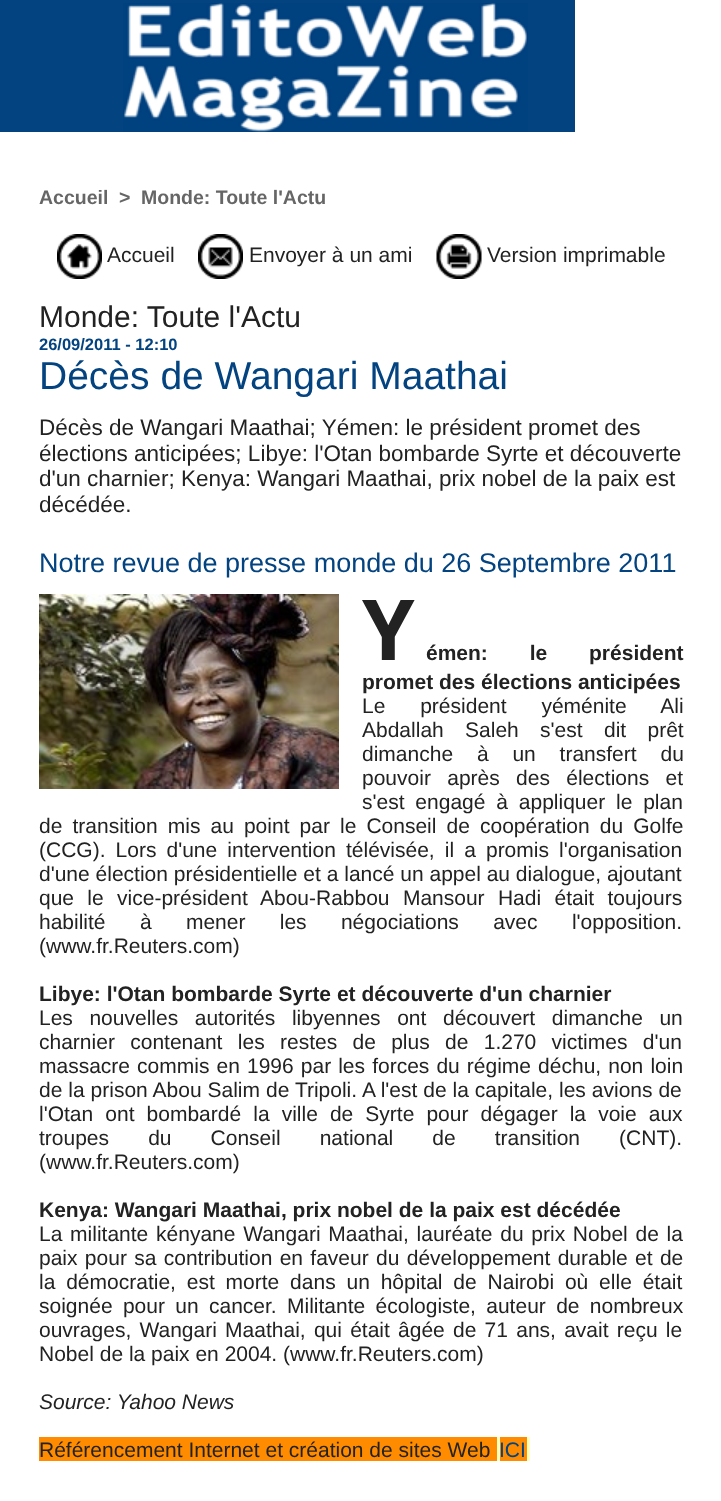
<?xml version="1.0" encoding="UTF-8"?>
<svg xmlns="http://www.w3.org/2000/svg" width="721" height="1501">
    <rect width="100%" height="100%" fill="#FFFFFF"/>
    <rect x="0" y="0" width="575" height="132" fill="#024380"/>
    <image x="123" y="3" width="405" height="129" href="img_01.png"/>
    <text x="39" y="204" font-family="Liberation Sans" font-size="19.5" font-weight="700" fill="#666666">Accueil</text>
    <text x="119" y="204" font-family="Liberation Sans" font-size="19.5" font-weight="700" fill="#666666">&gt;</text>
    <text x="141" y="204" font-family="Liberation Sans" font-size="19.5" font-weight="700" fill="#666666">Monde: Toute l'Actu</text>
    <image x="57" y="234" width="45" height="45" href="img_02.png"/>
    <text x="107" y="262" font-family="Liberation Sans" font-size="21" fill="#222222">Accueil</text>
    <image x="198" y="234" width="45" height="45" href="img_03.png"/>
    <text x="249" y="262" font-family="Liberation Sans" font-size="21" fill="#222222">Envoyer à un ami</text>
    <image x="436" y="234" width="46" height="45" href="img_04.png"/>
    <text x="487" y="262" font-family="Liberation Sans" font-size="21" fill="#222222">Version imprimable</text>
    <text x="39" y="327" font-family="Liberation Sans" font-size="30" fill="#222222">Monde: Toute l'Actu</text>
    <text x="39" y="350" font-family="Liberation Sans" font-size="16.5" font-weight="700" fill="#024380">26/09/2011 - 12:10</text>
    <text x="39" y="389" font-family="Liberation Sans" font-size="39" fill="#024380">Décès de Wangari Maathai</text>
    <text font-family="Liberation Sans" font-size="22.5" fill="#222222">
        <tspan x="39" y="435">Décès de Wangari Maathai; Yémen: le président promet des</tspan>
        <tspan x="39" y="461">élections anticipées; Libye: l'Otan bombarde Syrte et découverte</tspan>
        <tspan x="39" y="486">d'un charnier; Kenya: Wangari Maathai, prix nobel de la paix est</tspan>
        <tspan x="39" y="512">décédée.</tspan>
    </text>
    <text x="39" y="572" font-family="Liberation Sans" font-size="27" fill="#024380">Notre revue de presse monde du 26 Septembre 2011</text>
    <image x="39" y="594" width="300" height="195" href="img_05.png"/>
    <text x="362" y="660" font-family="Noto Sans" font-size="84" font-weight="700" fill="#222222">Y</text>
    <text x="426" y="660" word-spacing="36" font-family="Liberation Sans" font-size="21" font-weight="700" fill="#222222">émen: le président</text>
    <text x="362" y="689" font-family="Liberation Sans" font-size="21" font-weight="700" fill="#222222">promet des élections anticipées</text>
    <text font-family="Liberation Sans" font-size="21" fill="#222222">
        <tspan x="362" y="713" word-spacing="29">Le président yéménite Ali</tspan>
        <tspan x="362" y="737" word-spacing="15.5">Abdallah Saleh s'est dit prêt</tspan>
        <tspan x="362" y="761" word-spacing="18">dimanche à un transfert du</tspan>
        <tspan x="362" y="785" word-spacing="10.5">pouvoir après des élections et</tspan>
        <tspan x="362" y="809" word-spacing="5">s'est engagé à appliquer le plan</tspan>
    </text>
    <text font-family="Liberation Sans" font-size="21" fill="#222222">
        <tspan x="39" y="833" word-spacing="4.25">de transition mis au point par le Conseil de coopération du Golfe</tspan>
        <tspan x="39" y="857" word-spacing="4.25">(CCG). Lors d'une intervention télévisée, il a promis l'organisation</tspan>
        <tspan x="39" y="881">d'une élection présidentielle et a lancé un appel au dialogue, ajoutant</tspan>
        <tspan x="39" y="905" word-spacing="7.5">que le vice-président Abou-Rabbou Mansour Hadi était toujours</tspan>
        <tspan x="39" y="929" word-spacing="28.5">habilité à mener les négociations avec l'opposition.</tspan>
        <tspan x="39" y="953">(www.fr.Reuters.com)</tspan>
    </text>
    <text x="39" y="1001" font-family="Liberation Sans" font-size="21" font-weight="700" fill="#222222">Libye: l'Otan bombarde Syrte et découverte d'un charnier</text>
    <text font-family="Liberation Sans" font-size="21" fill="#222222">
        <tspan x="39" y="1025" word-spacing="10.75">Les nouvelles autorités libyennes ont découvert dimanche un</tspan>
        <tspan x="39" y="1049" word-spacing="9.5">charnier contenant les restes de plus de 1.270 victimes d'un</tspan>
        <tspan x="39" y="1073" word-spacing="1.25">massacre commis en 1996 par les forces du régime déchu, non loin</tspan>
        <tspan x="39" y="1097" word-spacing="0.1">de la prison Abou Salim de Tripoli. A l'est de la capitale, les avions de</tspan>
        <tspan x="39" y="1121" word-spacing="6.25">l'Otan ont bombardé la ville de Syrte pour dégager la voie aux</tspan>
        <tspan x="39" y="1145" word-spacing="33.25">troupes du Conseil national de transition (CNT).</tspan>
        <tspan x="39" y="1169">(www.fr.Reuters.com)</tspan>
    </text>
    <text x="39" y="1217" font-family="Liberation Sans" font-size="21" font-weight="700" fill="#222222">Kenya: Wangari Maathai, prix nobel de la paix est décédée</text>
    <text font-family="Liberation Sans" font-size="21" fill="#222222">
        <tspan x="39" y="1241" word-spacing="1.9">La militante kényane Wangari Maathai, lauréate du prix Nobel de la</tspan>
        <tspan x="39" y="1265" word-spacing="1.5">paix pour sa contribution en faveur du développement durable et de</tspan>
        <tspan x="39" y="1289" word-spacing="5">la démocratie, est morte dans un hôpital de Nairobi où elle était</tspan>
        <tspan x="39" y="1313" word-spacing="4.5">soignée pour un cancer. Militante écologiste, auteur de nombreux</tspan>
        <tspan x="39" y="1337" word-spacing="2.4">ouvrages, Wangari Maathai, qui était âgée de 71 ans, avait reçu le</tspan>
        <tspan x="39" y="1361">Nobel de la paix en 2004. (www.fr.Reuters.com)</tspan>
    </text>
    <text x="39" y="1409" font-family="Liberation Sans" font-size="21" font-style="italic" fill="#222222">Source: Yahoo News</text>
    <rect x="39" y="1437" width="458" height="24" fill="#FF8C00"/>
    <text x="39" y="1457" font-family="Liberation Sans" font-size="21" fill="#222222">Référencement Internet et création de sites Web</text>
    <rect x="497" y="1437" width="33" height="24" fill="#FFFFBF"/>
    <rect x="500" y="1437" width="27" height="24" fill="#FF8C00"/>
    <text x="499" y="1457" font-family="Liberation Sans" font-size="21" fill="#024380">ICI</text>
</svg>
